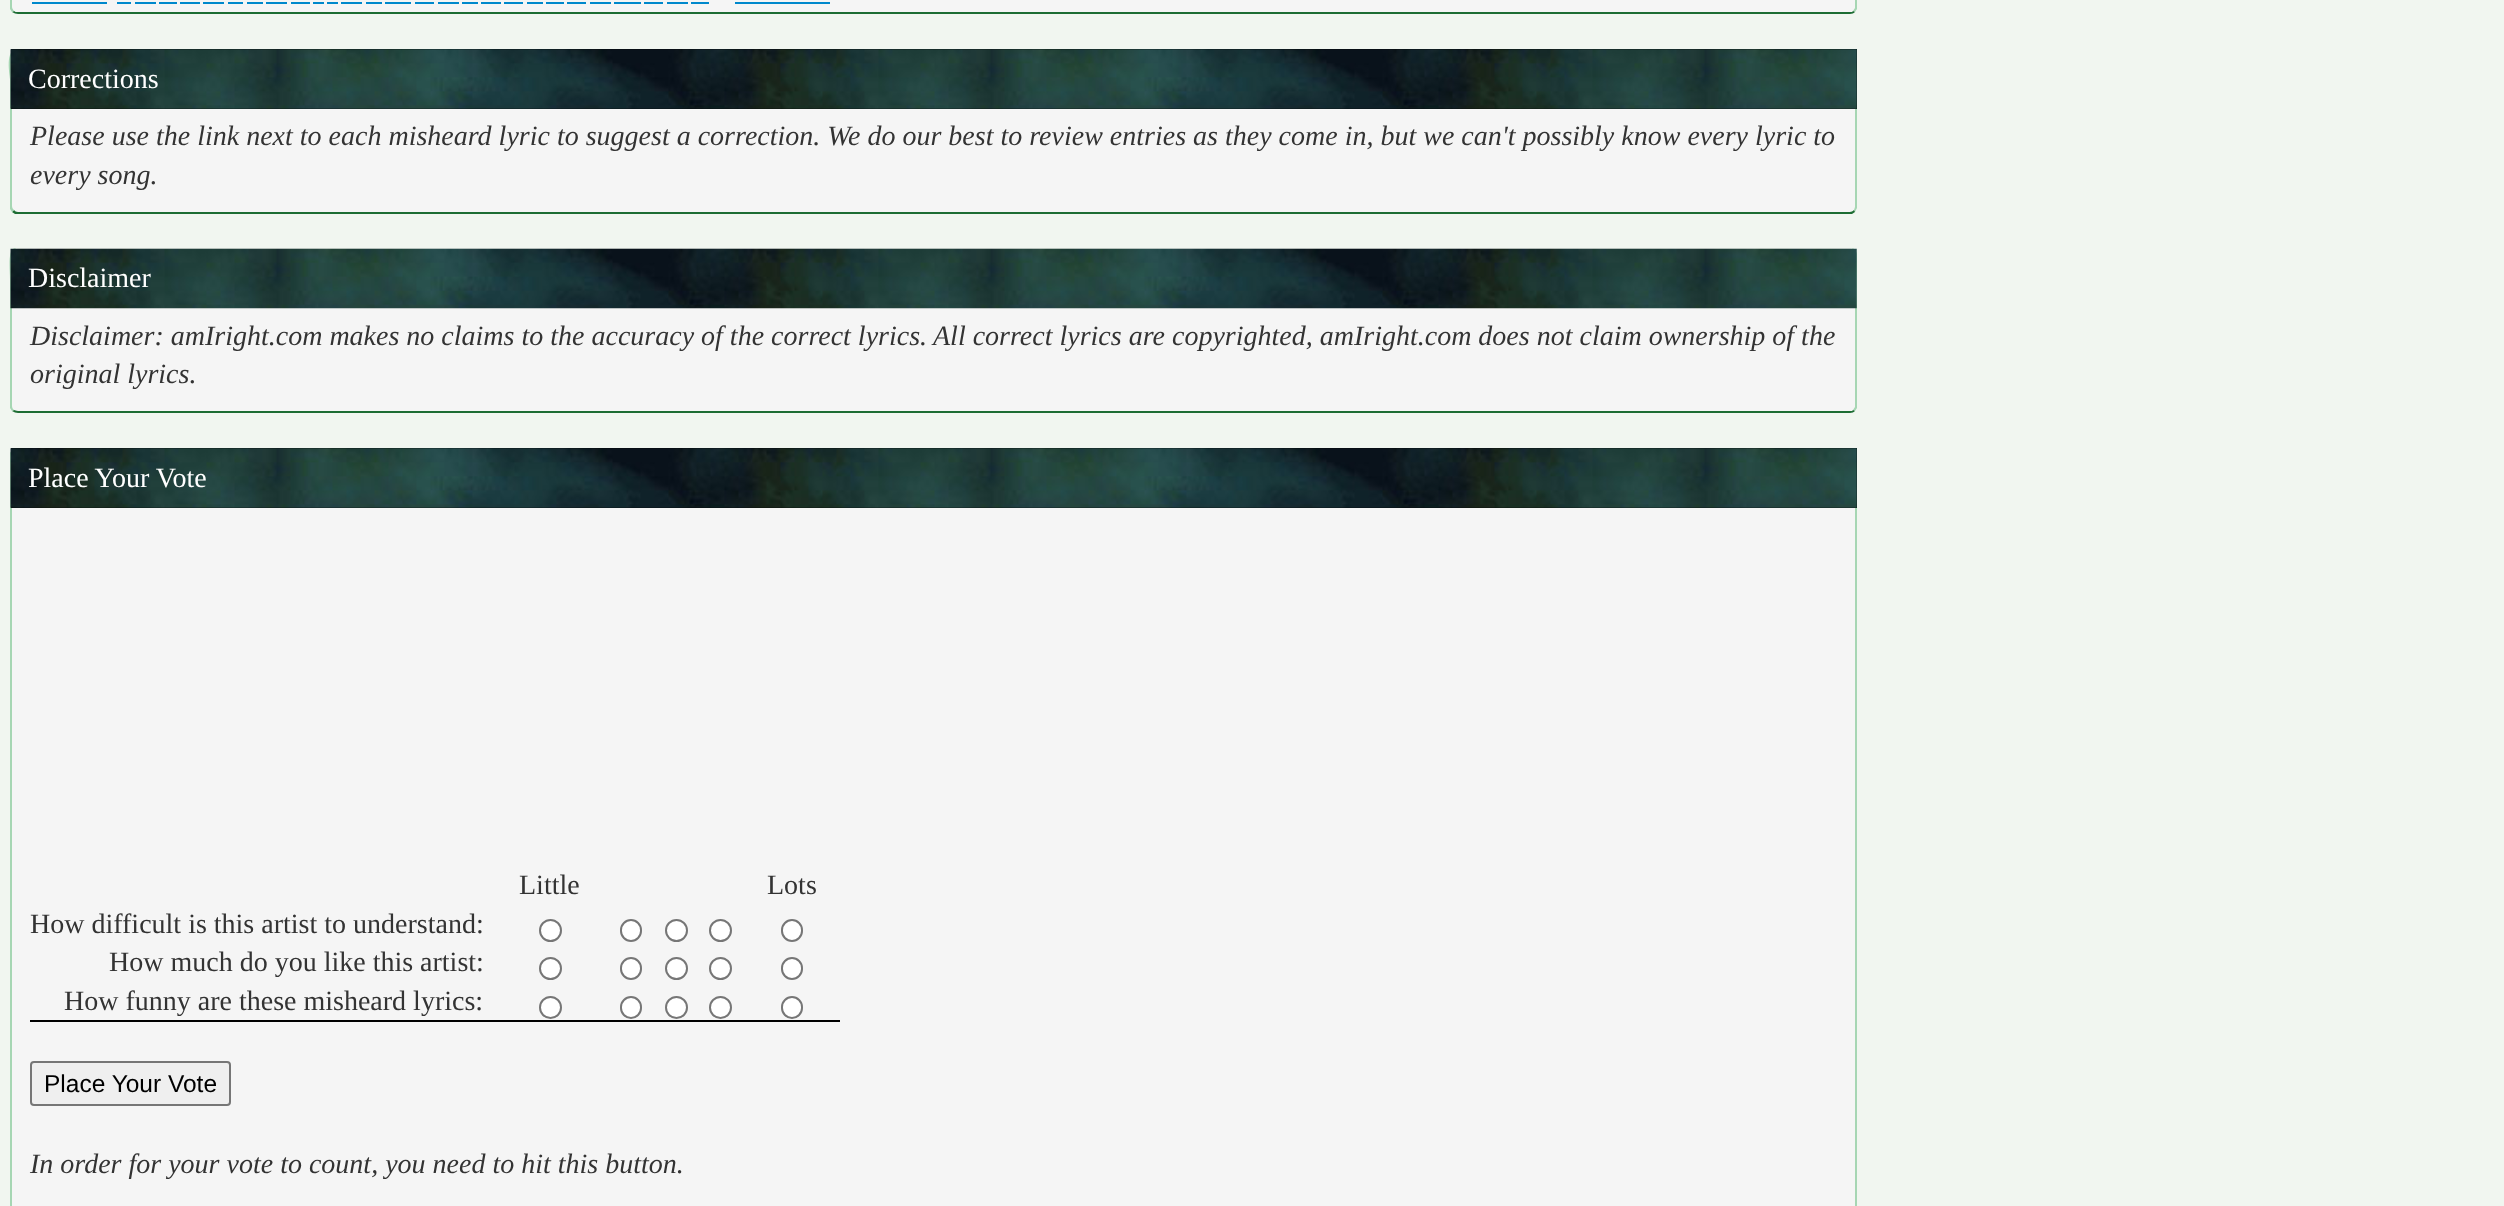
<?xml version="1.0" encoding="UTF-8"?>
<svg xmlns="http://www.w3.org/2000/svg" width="2504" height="1206">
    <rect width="100%" height="100%" fill="#F1F6F0"/>
    <rect x="11" y="-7" width="1846" height="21" rx="7" fill="#F5F5F5"/>
    <path d="M 1857 -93 C 1856 -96 1853 -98 1850 -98 C 1853 -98 1855 -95 1855 -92 V 8 L 1853 11 L 1855 12 L 1857 9 Z" fill="#A6D6B3"/>
    <path d="M 14 11 C 15 12 16 12 18 12 H 1850 C 1851 12 1853 12 1853 11 L 1855 12 C 1854 13 1852 14 1850 14 H 18 C 16 14 14 13 12 12 Z" fill="#1D6D33"/>
    <path d="M 18 -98 C 15 -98 12 -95 12 -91 V 7 C 12 8 13 10 14 11 L 12 12 L 10 9 V -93 C 11 -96 16 -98 18 -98 Z" fill="#A6D6B3"/>
    <rect x="32" y="2" width="75" height="2" fill="#0088CC"/>
    <rect x="117" y="2" width="14" height="2" fill="#0088CC"/>
    <rect x="135" y="2" width="21" height="2" fill="#0088CC"/>
    <rect x="159" y="2" width="18" height="2" fill="#0088CC"/>
    <rect x="180" y="2" width="20" height="2" fill="#0088CC"/>
    <rect x="203" y="2" width="21" height="2" fill="#0088CC"/>
    <rect x="228" y="2" width="15" height="2" fill="#0088CC"/>
    <rect x="247" y="2" width="16" height="2" fill="#0088CC"/>
    <rect x="266" y="2" width="21" height="2" fill="#0088CC"/>
    <rect x="291" y="2" width="19" height="2" fill="#0088CC"/>
    <rect x="313" y="2" width="11" height="2" fill="#0088CC"/>
    <rect x="327" y="2" width="11" height="2" fill="#0088CC"/>
    <rect x="341" y="2" width="21" height="2" fill="#0088CC"/>
    <rect x="366" y="2" width="16" height="2" fill="#0088CC"/>
    <rect x="385" y="2" width="26" height="2" fill="#0088CC"/>
    <rect x="415" y="2" width="19" height="2" fill="#0088CC"/>
    <rect x="438" y="2" width="21" height="2" fill="#0088CC"/>
    <rect x="462" y="2" width="16" height="2" fill="#0088CC"/>
    <rect x="481" y="2" width="20" height="2" fill="#0088CC"/>
    <rect x="504" y="2" width="19" height="2" fill="#0088CC"/>
    <rect x="527" y="2" width="16" height="2" fill="#0088CC"/>
    <rect x="546" y="2" width="18" height="2" fill="#0088CC"/>
    <rect x="567" y="2" width="19" height="2" fill="#0088CC"/>
    <rect x="590" y="2" width="21" height="2" fill="#0088CC"/>
    <rect x="614" y="2" width="27" height="2" fill="#0088CC"/>
    <rect x="644" y="2" width="19" height="2" fill="#0088CC"/>
    <rect x="667" y="2" width="21" height="2" fill="#0088CC"/>
    <rect x="691" y="2" width="18" height="2" fill="#0088CC"/>
    <rect x="735" y="2" width="95" height="2" fill="#0088CC"/>
    <rect x="11" y="49" width="1846" height="165" rx="7" fill="#F5F5F5"/>
    <path d="M 1857 54 C 1856 51 1853 49 1850 49 C 1854 49 1855 53 1855 56 V 207 L 1854 210 L 1855 212 L 1857 208 Z" fill="#A6D6B3"/>
    <path d="M 14 210 C 15 211 16 212 18 212 H 1850 C 1851 212 1853 211 1854 210 L 1855 212 L 1852 214 H 15 L 12 212 Z" fill="#1D6D33"/>
    <path d="M 18 49 C 15 49 12 52 12 56 V 206 C 12 208 13 209 14 210 L 12 212 L 10 209 V 79 C 10 75 4 49 18 49 Z" fill="#A6D6B3"/>
    <rect x="11" y="49" width="1846" height="60" fill="#000000"/>
    <image x="10" y="49" width="1847" height="60" href="img_01.png"/>
    <text x="28" y="88" font-family="Liberation Serif" font-size="28" fill="#FFFFFF">Corrections</text>
    <text font-family="Liberation Serif" font-size="28" font-style="italic" fill="#333333">
        <tspan x="30" y="145">Please use the link next to each misheard lyric to suggest a correction. We do our best to review entries as they come in, but we can't possibly know every lyric to</tspan>
        <tspan x="30" y="184">every song.</tspan>
    </text>
    <rect x="11" y="249" width="1846" height="164" rx="7" fill="#F5F5F5"/>
    <path d="M 18 250 H 1850 C 1853 250 1855 253 1855 257 V 256 C 1855 252 1853 248 1850 248 H 18 C 15 248 12 251 12 255 C 13 252 16 250 18 250 Z" fill="#000000" fill-opacity="0.05"/>
    <path d="M 1853 410 L 1855 407 V 281 C 1855 279 1858 252 1852 248 C 1854 248 1857 252 1857 254 V 408 L 1855 411 Z" fill="#A6D6B3"/>
    <path d="M 18 413 H 1850 C 1852 413 1854 412 1855 411 L 1853 410 C 1853 411 1851 411 1850 411 H 18 C 16 411 15 410 14 410 L 12 411 C 14 412 16 413 18 413 Z" fill="#1D6D33"/>
    <path d="M 16 248 C 14 250 12 253 12 256 V 406 C 12 408 13 409 14 410 L 12 411 L 10 408 V 279 C 10 269 7 248 16 248 Z" fill="#A6D6B3"/>
    <image x="10" y="248" width="1847" height="61" href="img_02.png"/>
    <text x="28" y="287" font-family="Liberation Serif" font-size="28" fill="#FFFFFF">Disclaimer</text>
    <text x="30" y="345" font-family="Liberation Serif" font-size="28" font-style="italic" fill="#333333">Disclaimer: amIright.com makes no claims to the accuracy of the correct lyrics.</text>
    <text x="933" y="345" font-family="Liberation Serif" font-size="28" font-style="italic" fill="#333333">All correct lyrics are copyrighted, amIright.com does not claim ownership of the</text>
    <text x="30" y="383" font-family="Liberation Serif" font-size="28" font-style="italic" fill="#333333">original lyrics.</text>
    <rect x="12" y="508" width="1843" height="698" fill="#F5F5F5"/>
    <path d="M 1857 453 C 1856 450 1853 448 1850 448 C 1853 448 1855 451 1855 455 V 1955 C 1855 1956 1854 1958 1854 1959 L 1855 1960 L 1857 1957 Z" fill="#A6D6B3"/>
    <path d="M 18 448 C 15 448 12 451 12 455 V 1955 C 12 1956 13 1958 14 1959 L 12 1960 L 10 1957 V 453 C 11 450 16 448 18 448 Z" fill="#A6D6B3"/>
    <rect x="11" y="448" width="1846" height="60" fill="#000000"/>
    <image x="10" y="448" width="1847" height="60" href="img_03.png"/>
    <text x="28" y="487" font-family="Liberation Serif" font-size="28" fill="#FFFFFF">Place Your Vote</text>
    <text x="519" y="894" font-family="Liberation Serif" font-size="28" fill="#333333">Little</text>
    <text x="767" y="894" font-family="Liberation Serif" font-size="28" fill="#333333">Lots</text>
    <text x="30" y="933" font-family="Liberation Serif" font-size="28" fill="#333333">How difficult is this artist to understand:</text>
    <circle cx="550.5" cy="930.5" r="10.5" fill="#FFFFFF" stroke="#767676" stroke-width="2"/>
    <rect x="621" y="920" width="20" height="21" rx="10" fill="#FFFFFF" stroke="#767676" stroke-width="2"/>
    <circle cx="676.5" cy="930.5" r="10.5" fill="#FFFFFF" stroke="#767676" stroke-width="2"/>
    <circle cx="720.5" cy="930.5" r="10.5" fill="#FFFFFF" stroke="#767676" stroke-width="2"/>
    <rect x="782" y="920" width="20" height="21" rx="10" fill="#FFFFFF" stroke="#767676" stroke-width="2"/>
    <text x="109" y="971" font-family="Liberation Serif" font-size="28" fill="#333333">How much do you like this artist:</text>
    <circle cx="550.5" cy="968.5" r="10.5" fill="#FFFFFF" stroke="#767676" stroke-width="2"/>
    <rect x="621" y="958" width="20" height="21" rx="10" fill="#FFFFFF" stroke="#767676" stroke-width="2"/>
    <circle cx="676.5" cy="968.5" r="10.5" fill="#FFFFFF" stroke="#767676" stroke-width="2"/>
    <circle cx="720.5" cy="968.5" r="10.5" fill="#FFFFFF" stroke="#767676" stroke-width="2"/>
    <rect x="782" y="958" width="20" height="21" rx="10" fill="#FFFFFF" stroke="#767676" stroke-width="2"/>
    <text x="64" y="1010" font-family="Liberation Serif" font-size="28" fill="#333333">How funny are these misheard lyrics:</text>
    <circle cx="550.5" cy="1007.5" r="10.5" fill="#FFFFFF" stroke="#767676" stroke-width="2"/>
    <rect x="621" y="997" width="20" height="21" rx="10" fill="#FFFFFF" stroke="#767676" stroke-width="2"/>
    <circle cx="676.5" cy="1007.5" r="10.5" fill="#FFFFFF" stroke="#767676" stroke-width="2"/>
    <circle cx="720.5" cy="1007.5" r="10.5" fill="#FFFFFF" stroke="#767676" stroke-width="2"/>
    <rect x="782" y="997" width="20" height="21" rx="10" fill="#FFFFFF" stroke="#767676" stroke-width="2"/>
    <rect x="30" y="1020" width="810" height="2" fill="#000000"/>
    <rect x="31" y="1062" width="199" height="43" rx="3" fill="#EFEFEF" stroke="#767676" stroke-width="2"/>
    <text x="44" y="1092" font-family="Liberation Sans" font-size="24.5" fill="#000000">Place Your Vote</text>
    <text x="30" y="1173" font-family="Liberation Serif" font-size="28" font-style="italic" fill="#333333">In order for your vote to count, you need to hit this button.</text>
</svg>
